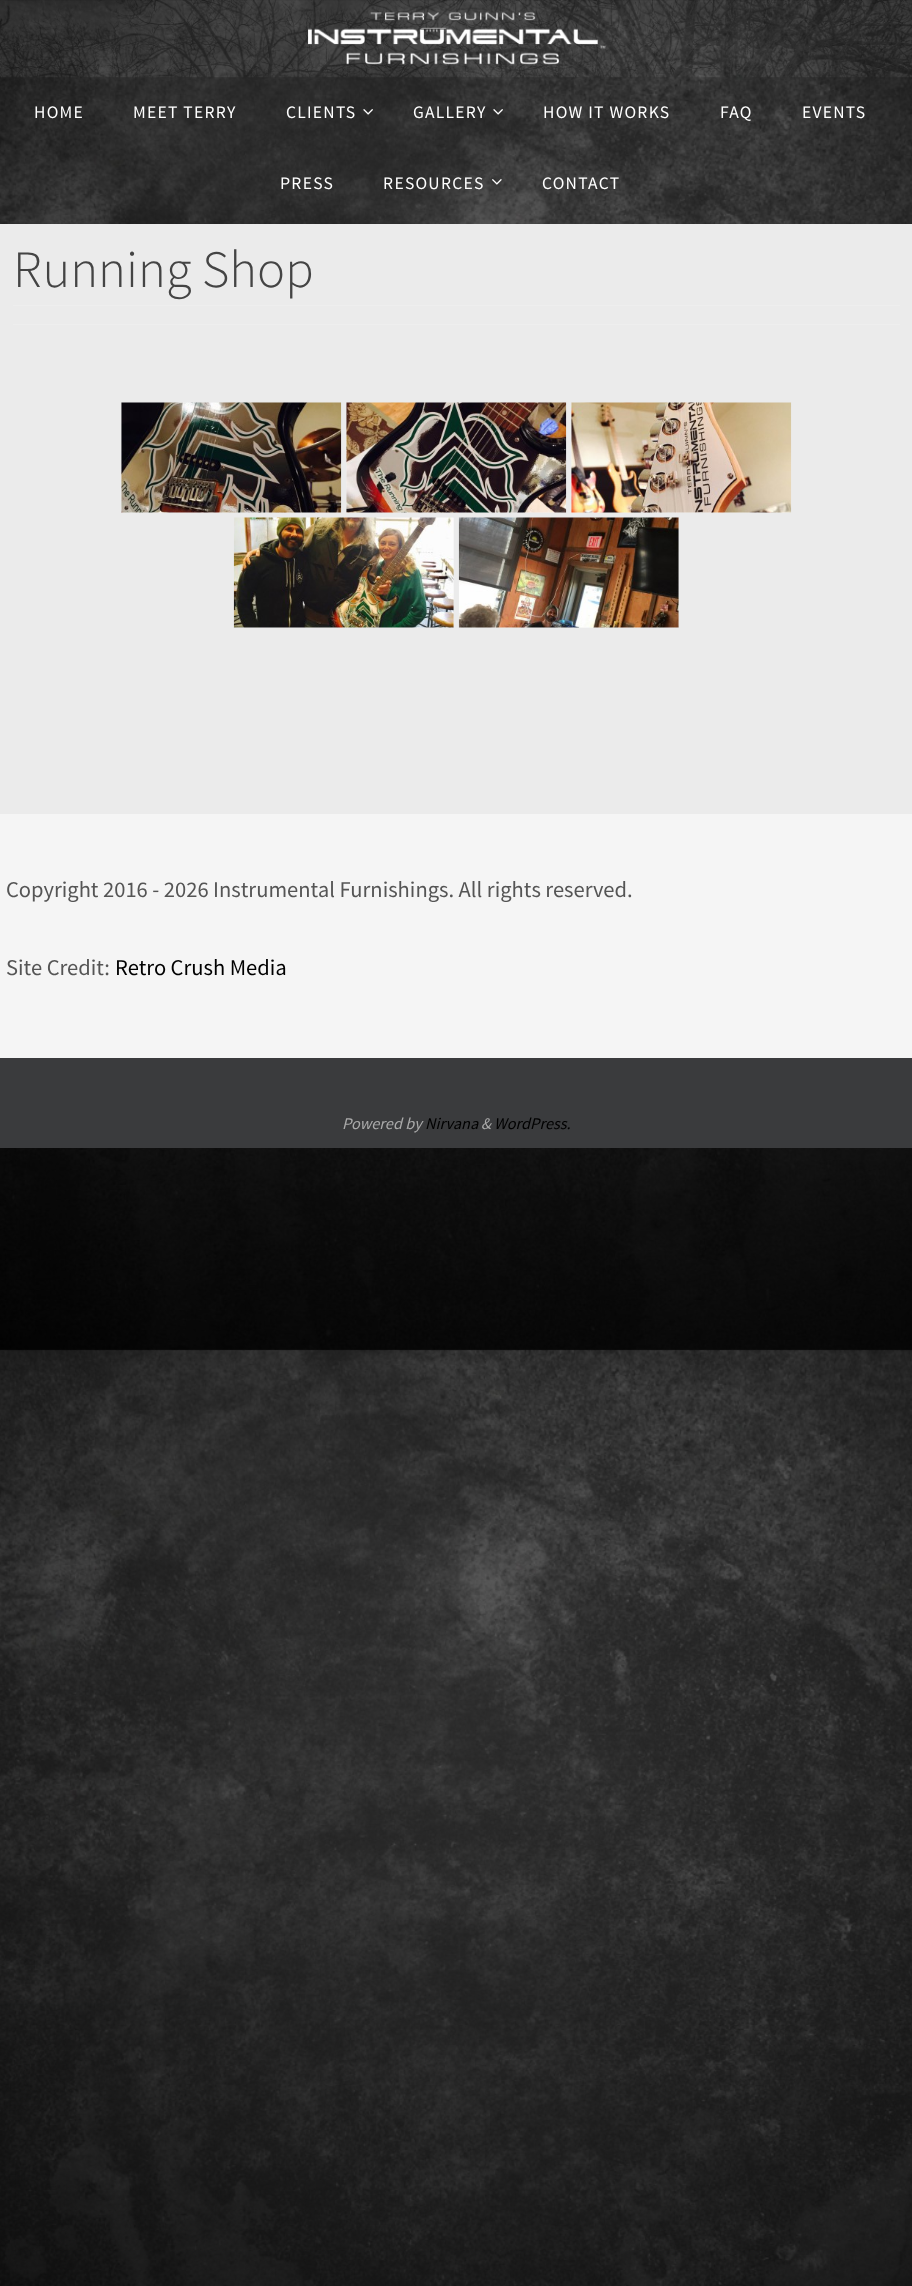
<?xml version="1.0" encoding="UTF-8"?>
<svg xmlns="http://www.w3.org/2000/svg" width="912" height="2286">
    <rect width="100%" height="100%" fill="#FFFFFF"/>
    <image x="0" y="0" width="912" height="2286" href="img_01.png"/>
    <image x="0" y="0" width="912" height="78" href="img_02.png"/>
    <text x="34" y="118" font-family="Source Sans Pro" font-size="17.5" letter-spacing="1.25" fill="#FFFFFF">HOME</text>
    <text x="133" y="118" font-family="Source Sans Pro" font-size="17.5" letter-spacing="1.25" fill="#FFFFFF">MEET TERRY</text>
    <text x="286" y="118" font-family="Source Sans Pro" font-size="17.5" letter-spacing="1.25" fill="#FFFFFF">CLIENTS</text>
    <image x="363" y="109" width="10" height="6" href="img_03.png"/>
    <text x="413" y="118" font-family="Source Sans Pro" font-size="17.5" letter-spacing="1.25" fill="#FFFFFF">GALLERY</text>
    <image x="493" y="109" width="10" height="6" href="img_04.png"/>
    <text x="543" y="118" font-family="Source Sans Pro" font-size="17.5" letter-spacing="1.25" fill="#FFFFFF">HOW IT WORKS</text>
    <text x="720" y="118" font-family="Source Sans Pro" font-size="17.5" letter-spacing="1.25" fill="#FFFFFF">FAQ</text>
    <text x="802" y="118" font-family="Source Sans Pro" font-size="17.5" letter-spacing="1.25" fill="#FFFFFF">EVENTS</text>
    <text x="280" y="189" font-family="Source Sans Pro" font-size="17.5" letter-spacing="1.25" fill="#FFFFFF">PRESS</text>
    <text x="383" y="189" font-family="Source Sans Pro" font-size="17.5" letter-spacing="1.25" fill="#FFFFFF">RESOURCES</text>
    <image x="492" y="179" width="10" height="6" href="img_05.png"/>
    <text x="542" y="189" font-family="Source Sans Pro" font-size="17.5" letter-spacing="1.25" fill="#FFFFFF">CONTACT</text>
    <rect x="0" y="224" width="912" height="590" fill="#EBEBEB"/>
    <text x="13" y="287" font-family="Source Sans Pro" font-size="52.5" font-weight="300" fill="#444444">Running Shop</text>
    <rect x="13" y="305" width="887" height="1" fill="#EEEEEE"/>
    <rect x="13" y="324" width="887" height="1" fill="#EEEEEE"/>
    <rect x="121" y="403" width="220" height="110" fill="#F1F1F1"/>
    <image x="121" y="402" width="221" height="111" href="img_06.png"/>
    <rect x="346" y="403" width="220" height="110" fill="#F1F1F1"/>
    <image x="346" y="402" width="221" height="111" href="img_07.png"/>
    <rect x="571" y="403" width="220" height="110" fill="#F1F1F1"/>
    <image x="571" y="402" width="221" height="111" href="img_08.png"/>
    <rect x="234" y="518" width="220" height="110" fill="#F1F1F1"/>
    <image x="233" y="517" width="221" height="111" href="img_09.png"/>
    <rect x="459" y="518" width="220" height="110" fill="#F1F1F1"/>
    <image x="458" y="517" width="221" height="111" href="img_10.png"/>
    <rect x="0" y="814" width="912" height="244" fill="#F5F5F5"/>
    <text x="6" y="897" font-family="Source Sans Pro" font-size="22.5" fill="#555555">Copyright 2016 - 2026 Instrumental Furnishings. All rights reserved.</text>
    <text x="6" y="975" font-family="Source Sans Pro" font-size="22.5" fill="#555555">Site Credit:</text>
    <text x="115" y="975" font-family="Source Sans Pro" font-size="22.5" fill="#000000">Retro Crush Media</text>
    <rect x="0" y="1058" width="912" height="90" fill="#3A3B3D"/>
    <text x="342" y="1129" font-family="Source Sans Pro" font-size="16.25" font-style="italic" fill="#AAAAAA">Powered by</text>
    <text x="425" y="1129" font-family="Source Sans Pro" font-size="16.25" font-style="italic" fill="#000000">Nirvana</text>
    <text x="481" y="1129" font-family="Source Sans Pro" font-size="16.25" font-style="italic" fill="#AAAAAA">&amp;</text>
    <text x="494" y="1129" font-family="Source Sans Pro" font-size="16.25" font-style="italic" fill="#000000">WordPress.</text>
</svg>
